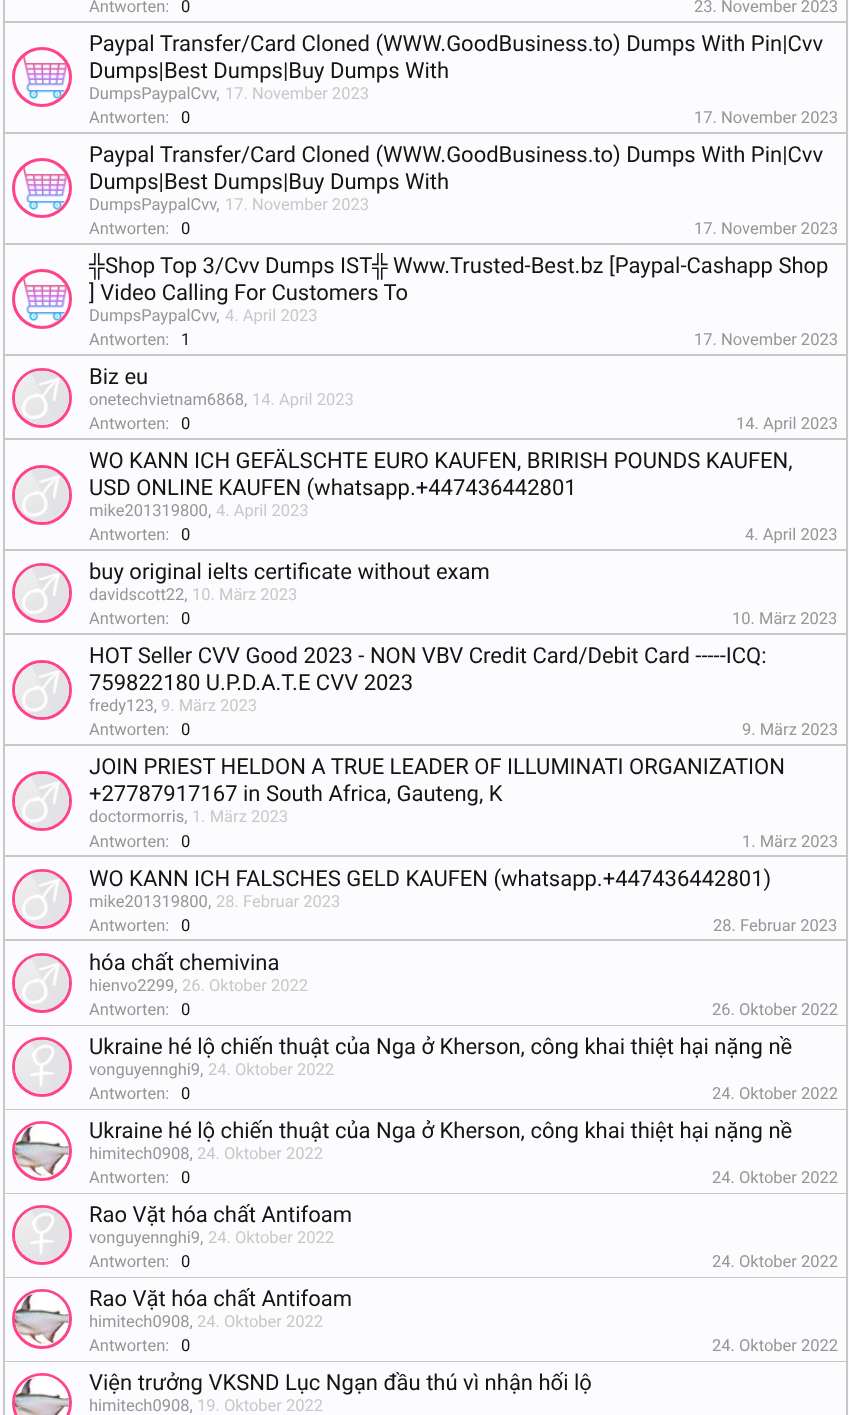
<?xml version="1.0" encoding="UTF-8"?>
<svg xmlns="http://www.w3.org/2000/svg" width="849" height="1415">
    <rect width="100%" height="100%" fill="#FCFCFF"/>
    <rect x="846" y="0" width="2" height="1415" fill="#C8C8C8"/>
    <rect x="3" y="0" width="2" height="1415" fill="#C8C8C8"/>
    <rect x="5" y="21" width="841" height="2" fill="#C8C8C8"/>
    <text x="89" y="12" font-family="Roboto" font-size="16.5" fill="#969696">Antworten:</text>
    <text x="181" y="12" font-family="Roboto" font-size="16.5" fill="#141414">0</text>
    <text x="694" y="12" font-family="Roboto" font-size="16.5" fill="#969696">23. November 2023</text>
    <rect x="5" y="132" width="841" height="2" fill="#C8C8C8"/>
    <circle cx="42" cy="77" r="28.5" fill="none" stroke="#FF438B" stroke-width="3"/>
    <image x="22" y="56" width="45" height="44" href="img_01.png"/>
    <text font-family="Roboto" font-size="22" fill="#141414">
        <tspan x="89" y="51">Paypal Transfer/Card Cloned (WWW.GoodBusiness.to) Dumps With Pin|Cvv</tspan>
        <tspan x="89" y="78">Dumps|Best Dumps|Buy Dumps With</tspan>
    </text>
    <text x="89" y="99" font-family="Roboto" font-size="16.5" fill="#969696">DumpsPaypalCvv,</text>
    <text x="225" y="99" font-family="Roboto" font-size="16.5" fill="#C8C8C8">17. November 2023</text>
    <text x="89" y="123" font-family="Roboto" font-size="16.5" fill="#969696">Antworten:</text>
    <text x="181" y="123" font-family="Roboto" font-size="16.5" fill="#141414">0</text>
    <text x="694" y="123" font-family="Roboto" font-size="16.5" fill="#969696">17. November 2023</text>
    <rect x="5" y="243" width="841" height="2" fill="#C8C8C8"/>
    <circle cx="42" cy="188" r="28.5" fill="none" stroke="#FF438B" stroke-width="3"/>
    <image x="22" y="167" width="45" height="44" href="img_01.png"/>
    <text font-family="Roboto" font-size="22" fill="#141414">
        <tspan x="89" y="162">Paypal Transfer/Card Cloned (WWW.GoodBusiness.to) Dumps With Pin|Cvv</tspan>
        <tspan x="89" y="189">Dumps|Best Dumps|Buy Dumps With</tspan>
    </text>
    <text x="89" y="210" font-family="Roboto" font-size="16.5" fill="#969696">DumpsPaypalCvv,</text>
    <text x="225" y="210" font-family="Roboto" font-size="16.5" fill="#C8C8C8">17. November 2023</text>
    <text x="89" y="234" font-family="Roboto" font-size="16.5" fill="#969696">Antworten:</text>
    <text x="181" y="234" font-family="Roboto" font-size="16.5" fill="#141414">0</text>
    <text x="694" y="234" font-family="Roboto" font-size="16.5" fill="#969696">17. November 2023</text>
    <rect x="5" y="354" width="841" height="2" fill="#C8C8C8"/>
    <circle cx="42" cy="299" r="28.5" fill="none" stroke="#FF438B" stroke-width="3"/>
    <image x="22" y="278" width="45" height="44" href="img_02.png"/>
    <text x="89" y="273" font-family="Liberation Serif" font-size="22" fill="#141414">╬</text>
    <text x="105" y="273" font-family="Roboto" font-size="22" fill="#141414">Shop Top 3/Cvv Dumps IST</text>
    <text x="372" y="273" font-family="Liberation Serif" font-size="22" fill="#141414">╬</text>
    <text x="393" y="273" font-family="Roboto" font-size="22" fill="#141414">Www.Trusted-Best.bz [Paypal-Cashapp Shop</text>
    <text x="89" y="300" font-family="Roboto" font-size="22" fill="#141414">] Video Calling For Customers To</text>
    <text x="89" y="321" font-family="Roboto" font-size="16.5" fill="#969696">DumpsPaypalCvv,</text>
    <text x="225" y="321" font-family="Roboto" font-size="16.5" fill="#C8C8C8">4. April 2023</text>
    <text x="89" y="345" font-family="Roboto" font-size="16.5" fill="#969696">Antworten:</text>
    <text x="181" y="345" font-family="Roboto" font-size="16.5" fill="#141414">1</text>
    <text x="694" y="345" font-family="Roboto" font-size="16.5" fill="#969696">17. November 2023</text>
    <rect x="5" y="438" width="841" height="2" fill="#C8C8C8"/>
    <circle cx="42" cy="398" r="28.5" fill="none" stroke="#FF438B" stroke-width="3"/>
    <image x="15" y="370" width="54" height="55" href="img_03.png"/>
    <text x="89" y="384" font-family="Roboto" font-size="22" fill="#141414">Biz eu</text>
    <text x="89" y="405" font-family="Roboto" font-size="16.5" fill="#969696">onetechvietnam6868,</text>
    <text x="252" y="405" font-family="Roboto" font-size="16.5" fill="#C8C8C8">14. April 2023</text>
    <text x="89" y="429" font-family="Roboto" font-size="16.5" fill="#969696">Antworten:</text>
    <text x="181" y="429" font-family="Roboto" font-size="16.5" fill="#141414">0</text>
    <text x="736" y="429" font-family="Roboto" font-size="16.5" fill="#969696">14. April 2023</text>
    <rect x="5" y="549" width="841" height="2" fill="#C8C8C8"/>
    <circle cx="42" cy="495" r="28.5" fill="none" stroke="#FF438B" stroke-width="3"/>
    <image x="15" y="468" width="54" height="54" href="img_04.png"/>
    <text font-family="Roboto" font-size="22" fill="#141414">
        <tspan x="89" y="468">WO KANN ICH GEFÄLSCHTE EURO KAUFEN, BRIRISH POUNDS KAUFEN,</tspan>
        <tspan x="89" y="495">USD ONLINE KAUFEN (whatsapp.+447436442801</tspan>
    </text>
    <text x="89" y="516" font-family="Roboto" font-size="16.5" fill="#969696">mike201319800,</text>
    <text x="216" y="516" font-family="Roboto" font-size="16.5" fill="#C8C8C8">4. April 2023</text>
    <text x="89" y="540" font-family="Roboto" font-size="16.5" fill="#969696">Antworten:</text>
    <text x="181" y="540" font-family="Roboto" font-size="16.5" fill="#141414">0</text>
    <text x="745" y="540" font-family="Roboto" font-size="16.5" fill="#969696">4. April 2023</text>
    <rect x="5" y="633" width="841" height="2" fill="#C8C8C8"/>
    <circle cx="42" cy="593" r="28.5" fill="none" stroke="#FF438B" stroke-width="3"/>
    <image x="15" y="565" width="54" height="55" href="img_03.png"/>
    <text x="89" y="579" font-family="Roboto" font-size="22" fill="#141414">buy original ielts certificate without exam</text>
    <text x="89" y="600" font-family="Roboto" font-size="16.5" fill="#969696">davidscott22,</text>
    <text x="192" y="600" font-family="Roboto" font-size="16.5" fill="#C8C8C8">10. März 2023</text>
    <text x="89" y="624" font-family="Roboto" font-size="16.5" fill="#969696">Antworten:</text>
    <text x="181" y="624" font-family="Roboto" font-size="16.5" fill="#141414">0</text>
    <text x="732" y="624" font-family="Roboto" font-size="16.5" fill="#969696">10. März 2023</text>
    <rect x="5" y="744" width="841" height="2" fill="#C8C8C8"/>
    <circle cx="42" cy="690" r="28.5" fill="none" stroke="#FF438B" stroke-width="3"/>
    <image x="15" y="663" width="54" height="54" href="img_05.png"/>
    <text font-family="Roboto" font-size="22" fill="#141414">
        <tspan x="89" y="663">HOT Seller CVV Good 2023 - NON VBV Credit Card/Debit Card -----ICQ:</tspan>
        <tspan x="89" y="690">759822180 U.P.D.A.T.E CVV 2023</tspan>
    </text>
    <text x="89" y="711" font-family="Roboto" font-size="16.5" fill="#969696">fredy123,</text>
    <text x="161" y="711" font-family="Roboto" font-size="16.5" fill="#C8C8C8">9. März 2023</text>
    <text x="89" y="735" font-family="Roboto" font-size="16.5" fill="#969696">Antworten:</text>
    <text x="181" y="735" font-family="Roboto" font-size="16.5" fill="#141414">0</text>
    <text x="742" y="735" font-family="Roboto" font-size="16.5" fill="#969696">9. März 2023</text>
    <rect x="5" y="855" width="841" height="2" fill="#C8C8C8"/>
    <circle cx="42" cy="801" r="28.5" fill="none" stroke="#FF438B" stroke-width="3"/>
    <image x="15" y="774" width="54" height="54" href="img_05.png"/>
    <text font-family="Roboto" font-size="22" fill="#141414">
        <tspan x="89" y="774">JOIN PRIEST HELDON A TRUE LEADER OF ILLUMINATI ORGANIZATION</tspan>
        <tspan x="89" y="801">+27787917167 in South Africa, Gauteng, K</tspan>
    </text>
    <text x="89" y="822" font-family="Roboto" font-size="16.5" fill="#969696">doctormorris,</text>
    <text x="192" y="822" font-family="Roboto" font-size="16.5" fill="#C8C8C8">1. März 2023</text>
    <text x="89" y="847" font-family="Roboto" font-size="16.5" fill="#969696">Antworten:</text>
    <text x="181" y="847" font-family="Roboto" font-size="16.5" fill="#141414">0</text>
    <text x="742" y="847" font-family="Roboto" font-size="16.5" fill="#969696">1. März 2023</text>
    <rect x="5" y="939" width="841" height="2" fill="#C8C8C8"/>
    <circle cx="42" cy="899" r="28.5" fill="none" stroke="#FF438B" stroke-width="3"/>
    <image x="15" y="871" width="54" height="55" href="img_03.png"/>
    <text x="89" y="886" font-family="Roboto" font-size="22" fill="#141414">WO KANN ICH FALSCHES GELD KAUFEN (whatsapp.+447436442801)</text>
    <text x="89" y="907" font-family="Roboto" font-size="16.5" fill="#969696">mike201319800,</text>
    <text x="216" y="907" font-family="Roboto" font-size="16.5" fill="#C8C8C8">28. Februar 2023</text>
    <text x="713" y="931" font-family="Roboto" font-size="16.5" fill="#969696">28. Februar 2023</text>
    <text x="89" y="931" font-family="Roboto" font-size="16.5" fill="#969696">Antworten:</text>
    <text x="181" y="931" font-family="Roboto" font-size="16.5" fill="#141414">0</text>
    <rect x="5" y="1025" width="841" height="1" fill="#C8C8C8"/>
    <circle cx="42" cy="983" r="28.5" fill="none" stroke="#FF438B" stroke-width="3"/>
    <image x="15" y="955" width="54" height="55" href="img_06.png"/>
    <text x="89" y="970" font-family="Roboto" font-size="22" fill="#141414">hóa chất chemivina</text>
    <text x="89" y="991" font-family="Roboto" font-size="16.5" fill="#969696">hienvo2299,</text>
    <text x="182" y="991" font-family="Roboto" font-size="16.5" fill="#C8C8C8">26. Oktober 2022</text>
    <text x="712" y="1015" font-family="Roboto" font-size="16.5" fill="#969696">26. Oktober 2022</text>
    <text x="89" y="1015" font-family="Roboto" font-size="16.5" fill="#969696">Antworten:</text>
    <text x="181" y="1015" font-family="Roboto" font-size="16.5" fill="#141414">0</text>
    <rect x="5" y="1109" width="841" height="1" fill="#C8C8C8"/>
    <circle cx="42" cy="1067" r="28.5" fill="none" stroke="#FF438B" stroke-width="3"/>
    <image x="15" y="1039" width="54" height="55" href="img_07.png"/>
    <text x="89" y="1054" font-family="Roboto" font-size="22" fill="#141414">Ukraine hé lộ chiến thuật của Nga ở Kherson, công khai thiệt hại nặng nề</text>
    <text x="89" y="1075" font-family="Roboto" font-size="16.5" fill="#969696">vonguyennghi9,</text>
    <text x="208" y="1075" font-family="Roboto" font-size="16.5" fill="#C8C8C8">24. Oktober 2022</text>
    <text x="89" y="1099" font-family="Roboto" font-size="16.5" fill="#969696">Antworten:</text>
    <text x="181" y="1099" font-family="Roboto" font-size="16.5" fill="#141414">0</text>
    <text x="712" y="1099" font-family="Roboto" font-size="16.5" fill="#969696">24. Oktober 2022</text>
    <rect x="5" y="1193" width="841" height="1" fill="#C8C8C8"/>
    <circle cx="42" cy="1151" r="28.5" fill="none" stroke="#FF438B" stroke-width="3"/>
    <image x="15" y="1123" width="54" height="55" href="img_08.png"/>
    <text x="89" y="1138" font-family="Roboto" font-size="22" fill="#141414">Ukraine hé lộ chiến thuật của Nga ở Kherson, công khai thiệt hại nặng nề</text>
    <text x="89" y="1159" font-family="Roboto" font-size="16.5" fill="#969696">himitech0908,</text>
    <text x="197" y="1159" font-family="Roboto" font-size="16.5" fill="#C8C8C8">24. Oktober 2022</text>
    <text x="89" y="1183" font-family="Roboto" font-size="16.5" fill="#969696">Antworten:</text>
    <text x="181" y="1183" font-family="Roboto" font-size="16.5" fill="#141414">0</text>
    <text x="712" y="1183" font-family="Roboto" font-size="16.5" fill="#969696">24. Oktober 2022</text>
    <rect x="5" y="1277" width="841" height="1" fill="#C8C8C8"/>
    <circle cx="42" cy="1235" r="28.5" fill="none" stroke="#FF438B" stroke-width="3"/>
    <image x="15" y="1207" width="54" height="55" href="img_09.png"/>
    <text x="89" y="1222" font-family="Roboto" font-size="22" fill="#141414">Rao Vặt hóa chất Antifoam</text>
    <text x="89" y="1243" font-family="Roboto" font-size="16.5" fill="#969696">vonguyennghi9,</text>
    <text x="208" y="1243" font-family="Roboto" font-size="16.5" fill="#C8C8C8">24. Oktober 2022</text>
    <text x="712" y="1267" font-family="Roboto" font-size="16.5" fill="#969696">24. Oktober 2022</text>
    <text x="89" y="1267" font-family="Roboto" font-size="16.5" fill="#969696">Antworten:</text>
    <text x="181" y="1267" font-family="Roboto" font-size="16.5" fill="#141414">0</text>
    <rect x="5" y="1361" width="841" height="1" fill="#C8C8C8"/>
    <circle cx="42" cy="1319" r="28.5" fill="none" stroke="#FF438B" stroke-width="3"/>
    <image x="15" y="1291" width="54" height="55" href="img_08.png"/>
    <text x="89" y="1306" font-family="Roboto" font-size="22" fill="#141414">Rao Vặt hóa chất Antifoam</text>
    <text x="89" y="1327" font-family="Roboto" font-size="16.5" fill="#969696">himitech0908,</text>
    <text x="197" y="1327" font-family="Roboto" font-size="16.5" fill="#C8C8C8">24. Oktober 2022</text>
    <text x="712" y="1351" font-family="Roboto" font-size="16.5" fill="#969696">24. Oktober 2022</text>
    <text x="89" y="1351" font-family="Roboto" font-size="16.5" fill="#969696">Antworten:</text>
    <text x="181" y="1351" font-family="Roboto" font-size="16.5" fill="#141414">0</text>
    <circle cx="42" cy="1403" r="28.5" fill="none" stroke="#FF438B" stroke-width="3"/>
    <image x="15" y="1375" width="54" height="40" href="img_10.png"/>
    <text x="89" y="1390" font-family="Roboto" font-size="22" fill="#141414">Viện trưởng VKSND Lục Ngạn đầu thú vì nhận hối lộ</text>
    <text x="89" y="1411" font-family="Roboto" font-size="16.5" fill="#969696">himitech0908,</text>
    <text x="197" y="1411" font-family="Roboto" font-size="16.5" fill="#C8C8C8">19. Oktober 2022</text>
</svg>
